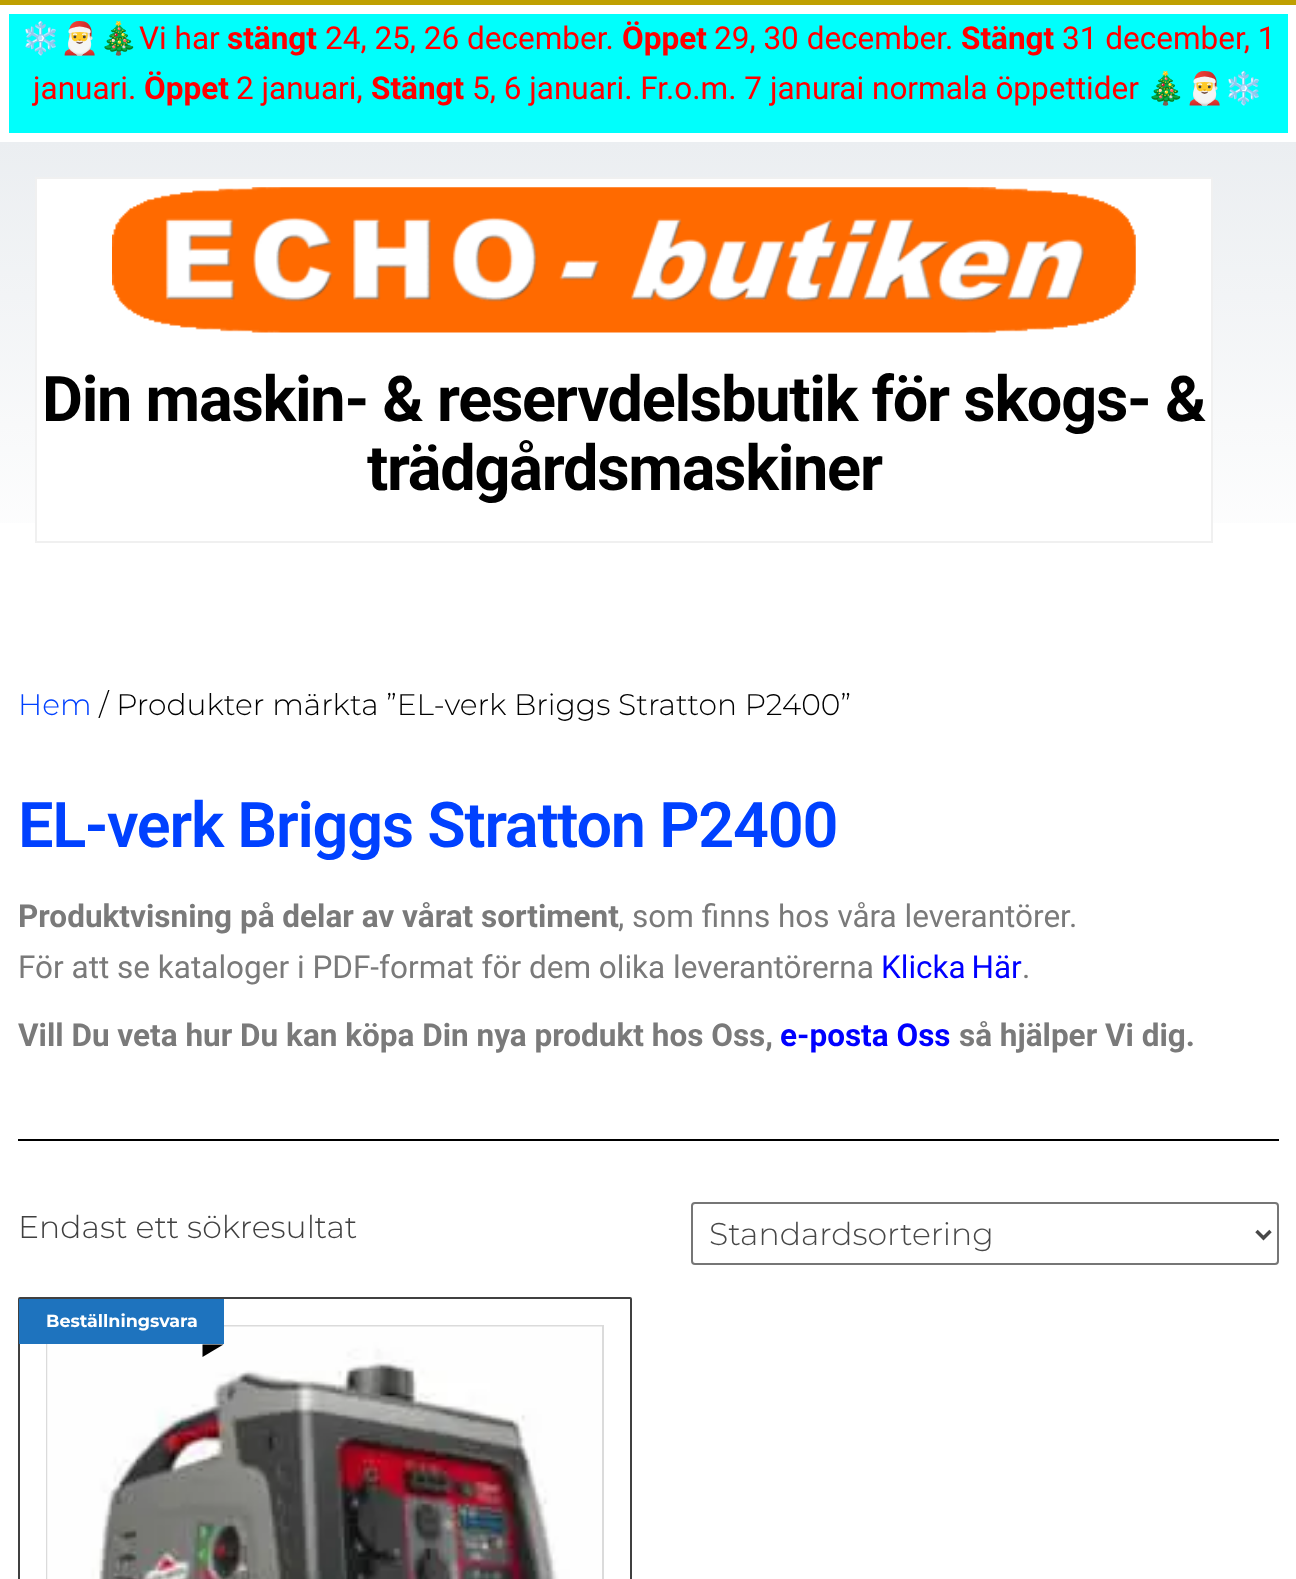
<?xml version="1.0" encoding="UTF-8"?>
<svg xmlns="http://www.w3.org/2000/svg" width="1296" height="1579">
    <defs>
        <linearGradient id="g1" gradientUnits="userSpaceOnUse" x1="648" y1="142" x2="648" y2="578"><stop offset="0" stop-color="#EBEEF1"/><stop offset="1" stop-color="#FFFFFF"/></linearGradient>
    </defs>
    <rect width="100%" height="100%" fill="#FFFFFF"/>
    <rect x="0" y="0" width="1296" height="5" fill="#BF9F00"/>
    <rect x="9" y="14" width="1279" height="119" fill="#00FFFC"/>
    <text x="21" y="49" font-family="Noto Color Emoji" font-size="31.5" fill="#FF0000">❄️🎅🎄</text>
    <text x="139" y="49" font-family="Roboto" font-size="31.5" fill="#FF0000">Vi har</text>
    <text x="227" y="49" font-family="Roboto" font-size="31.5" font-weight="700" fill="#FF0000">stängt</text>
    <text x="325" y="49" font-family="Roboto" font-size="31.5" fill="#FF0000">24, 25, 26 december.</text>
    <text x="622" y="49" font-family="Roboto" font-size="31.5" font-weight="700" fill="#FF0000">Öppet</text>
    <text x="714" y="49" font-family="Roboto" font-size="31.5" fill="#FF0000">29, 30 december.</text>
    <text x="961" y="49" font-family="Roboto" font-size="31.5" font-weight="700" fill="#FF0000">Stängt</text>
    <text x="1062" y="49" font-family="Roboto" font-size="31.5" fill="#FF0000">31 december, 1</text>
    <text x="33" y="99" font-family="Roboto" font-size="31.5" fill="#FF0000">januari.</text>
    <text x="144" y="99" font-family="Roboto" font-size="31.5" font-weight="700" fill="#FF0000">Öppet</text>
    <text x="236" y="99" font-family="Roboto" font-size="31.5" fill="#FF0000">2 januari,</text>
    <text x="371" y="99" font-family="Roboto" font-size="31.5" font-weight="700" fill="#FF0000">Stängt</text>
    <text x="472" y="99" font-family="Roboto" font-size="31.5" fill="#FF0000">5, 6 januari. Fr.o.m. 7 janurai normala öppettider</text>
    <text x="1146" y="99" font-family="Noto Color Emoji" font-size="31.5" fill="#FF0000">🎄🎅❄️</text>
    <rect x="0" y="142" width="1296" height="381" fill="url(#g1)"/>
    <rect x="37" y="179" width="1174" height="344" fill="#FFFFFF"/>
    <rect x="36" y="178" width="1176" height="364" fill="none" stroke="#F0F0F0" stroke-width="2"/>
    <image x="112" y="187" width="1024" height="146" href="img_01.png"/>
    <text x="42" y="421" font-family="Roboto" font-size="63" font-weight="700" letter-spacing="-1.25" fill="#000000">Din maskin- &amp; reservdelsbutik för skogs- &amp;</text>
    <text x="367" y="490" font-family="Roboto" font-size="63" font-weight="700" letter-spacing="-1.25" fill="#000000">trädgårdsmaskiner</text>
    <text x="18" y="715" font-family="Montserrat" font-size="29.75" font-weight="300" fill="#0041FF">Hem</text>
    <text x="99" y="715" font-family="Montserrat" font-size="29.75" font-weight="300" fill="#000000">/ Produkter märkta ”EL-verk Briggs Stratton P2400”</text>
    <text x="18" y="847" font-family="Roboto" font-size="63" font-weight="600" letter-spacing="-1.25" fill="#0041FF">EL-verk Briggs Stratton P2400</text>
    <text x="18" y="927" font-family="Roboto" font-size="31.5" font-weight="700" fill="#7A7A7A">Produktvisning på delar av vårat sortiment</text>
    <text x="618" y="927" font-family="Roboto" font-size="31.5" fill="#7A7A7A">, som finns hos våra leverantörer.</text>
    <text x="18" y="978" font-family="Roboto" font-size="31.5" fill="#7A7A7A">För att se kataloger i PDF-format för dem olika leverantörerna</text>
    <text x="881" y="978" word-spacing="-2" font-family="Roboto" font-size="31.5" fill="#0000FF">Klicka Här</text>
    <text x="1022" y="978" font-family="Roboto" font-size="31.5" fill="#7A7A7A">.</text>
    <text x="18" y="1046" font-family="Roboto" font-size="31.5" font-weight="700" fill="#7A7A7A">Vill Du veta hur Du kan köpa Din nya produkt hos Oss,</text>
    <text x="780" y="1046" font-family="Roboto" font-size="31.5" font-weight="700" fill="#0000FF">e-posta Oss</text>
    <text x="959" y="1046" font-family="Roboto" font-size="31.5" font-weight="700" fill="#7A7A7A">så hjälper Vi dig.</text>
    <rect x="18" y="1139" width="1261" height="2" fill="#000000"/>
    <text x="18" y="1238" font-family="Montserrat" font-size="31.5" font-weight="300" fill="#404040">Endast ett sökresultat</text>
    <rect x="692" y="1203" width="586" height="61" rx="3" fill="none" stroke="#767676" stroke-width="2"/>
    <path d="M 1256.5 1231 L 1263.5 1238 L 1270.5 1231" fill="none" stroke="#484848" stroke-width="3.5"/>
    <text x="709" y="1245" font-family="Montserrat" font-size="31.5" font-weight="300" fill="#484848">Standardsortering</text>
    <rect x="19" y="1298" width="612" height="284" rx="1" fill="none" stroke="#404040" stroke-width="2"/>
    <rect x="47" y="1326" width="556" height="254" fill="none" stroke="#DBDBDB" stroke-width="2"/>
    <image x="47" y="1326" width="555" height="253" href="img_02.png"/>
    <rect x="19" y="1299" width="205" height="45" fill="#1E73BE"/>
    <text x="46" y="1327" font-family="Montserrat" font-size="17.5" font-weight="700" fill="#FFFFFF">Beställningsvara</text>
    <path d="M 202.5 1344.5 V 1357 L 223.5 1344.5 Z" fill="#000000"/>
</svg>
